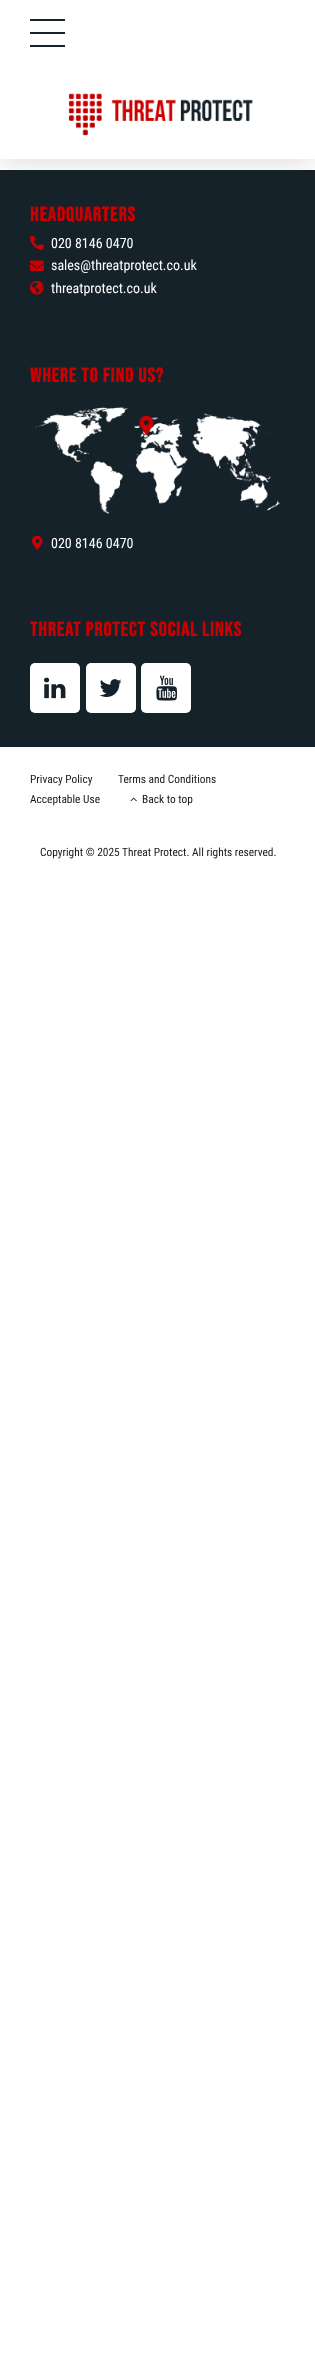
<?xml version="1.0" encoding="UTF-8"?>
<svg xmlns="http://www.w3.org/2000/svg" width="315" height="2355">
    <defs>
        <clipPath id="clip1"><rect x="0" y="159" width="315" height="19"/></clipPath>
        <filter id="blur1" x="-50%" y="-200%" width="200%" height="500%"><feGaussianBlur stdDeviation="15"/></filter>
    </defs>
    <rect width="100%" height="100%" fill="#FFFFFF"/>
    <rect x="0" y="170" width="315" height="577" fill="#16222A"/>
    <g clip-path="url(#clip1)">
        <rect x="0" y="-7" width="315" height="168" fill="#000000" fill-opacity="0.15" filter="url(#blur1)"/>
    </g>
    <rect x="30" y="19" width="35" height="2" fill="#16222A"/>
    <rect x="30" y="32" width="35" height="2" fill="#16222A"/>
    <rect x="30" y="45" width="35" height="2" fill="#16222A"/>
    <image x="68" y="93" width="185" height="43" href="img_01.png"/>
    <text x="30" y="221" font-family="Bebas Neue" font-size="20" font-weight="700" letter-spacing="1" fill="#CC0000">Headquarters</text>
    <image x="30" y="235" width="14" height="15" href="img_02.png"/>
    <text x="51" y="248" font-family="Roboto Condensed" font-size="14" fill="#FFFFFF">020 8146 0470</text>
    <image x="30" y="260" width="14" height="11" href="img_03.png"/>
    <text x="51" y="270" font-family="Roboto Condensed" font-size="14" fill="#FFFFFF">sales@threatprotect.co.uk</text>
    <image x="30" y="281" width="14" height="14" href="img_04.png"/>
    <text x="51" y="293" font-family="Roboto Condensed" font-size="14" fill="#FFFFFF">threatprotect.co.uk</text>
    <text x="30" y="382" font-family="Bebas Neue" font-size="20" font-weight="700" letter-spacing="1" fill="#CC0000">Where to find us?</text>
    <image x="35" y="407" width="245" height="107" href="img_05.png"/>
    <image x="32" y="535" width="11" height="15" href="img_06.png"/>
    <text x="51" y="548" font-family="Roboto Condensed" font-size="14" fill="#FFFFFF">020 8146 0470</text>
    <text x="30" y="636" font-family="Bebas Neue" font-size="20" font-weight="700" letter-spacing="1" fill="#CC0000">Threat Protect Social links</text>
    <rect x="30" y="663" width="50" height="50" rx="5" fill="#FFFFFF"/>
    <image x="44" y="677" width="22" height="22" href="img_07.png"/>
    <rect x="86" y="663" width="50" height="50" rx="5" fill="#FFFFFF"/>
    <image x="99" y="679" width="23" height="18" href="img_08.png"/>
    <rect x="141" y="663" width="50" height="50" rx="5" fill="#FFFFFF"/>
    <image x="156" y="675" width="22" height="26" href="img_09.png"/>
    <text x="30" y="783" font-family="Roboto Condensed" font-size="11.4" fill="#191919">Privacy Policy</text>
    <text x="118" y="783" font-family="Roboto Condensed" font-size="11.4" fill="#191919">Terms and Conditions</text>
    <text x="30" y="803" font-family="Roboto Condensed" font-size="11.4" fill="#191919">Acceptable Use</text>
    <image x="130" y="797" width="7" height="5" href="img_10.png"/>
    <text x="142" y="803" font-family="Roboto Condensed" font-size="11.4" fill="#191919">Back to top</text>
    <text x="40" y="856" font-family="Roboto Condensed" font-size="11.4" fill="#191919">Copyright © 2025 Threat Protect. All rights reserved.</text>
</svg>
